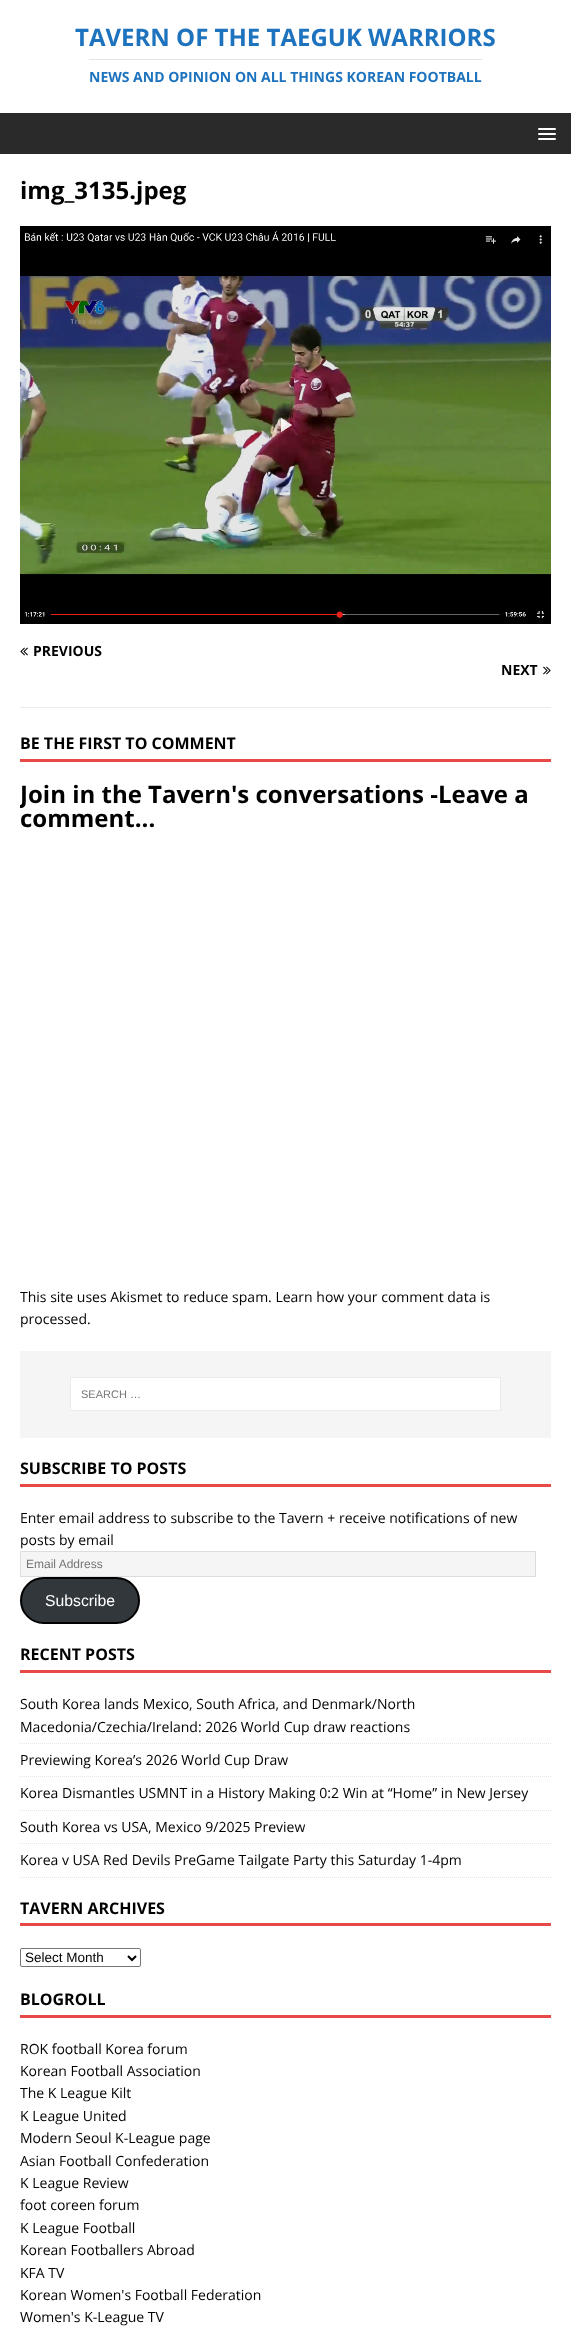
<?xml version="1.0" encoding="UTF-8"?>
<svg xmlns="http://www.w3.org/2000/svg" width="571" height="2331">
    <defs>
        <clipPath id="clip1"><rect x="20" y="174" width="531" height="1157"/></clipPath>
    </defs>
    <rect width="100%" height="100%" fill="#FFFFFF"/>
    <text x="75" y="46" font-family="Open Sans" font-size="24" font-weight="700" fill="#1E73BE">TAVERN OF THE TAEGUK WARRIORS</text>
    <rect x="89" y="59" width="393" height="1" fill="#E5E5E5"/>
    <text x="89" y="82" font-family="Open Sans" font-size="14" font-weight="700" fill="#1E73BE">NEWS AND OPINION ON ALL THINGS KOREAN FOOTBALL</text>
    <rect x="0" y="113" width="571" height="41" fill="#2A2A2A"/>
    <rect x="538" y="128" width="18" height="2" rx="1" fill="#FFFFFF"/>
    <rect x="538" y="133" width="18" height="2" rx="1" fill="#FFFFFF"/>
    <rect x="538" y="138" width="18" height="2" rx="1" fill="#FFFFFF"/>
    <text x="20" y="199" font-family="Open Sans" font-size="24" font-weight="700" fill="#000000">img_3135.jpeg</text>
    <image x="20" y="226" width="531" height="398" href="img_01.png"/>
    <rect x="20" y="707" width="531" height="1" fill="#EBEBEB"/>
    <image x="20" y="647" width="8" height="9" href="img_02.png"/>
    <text x="33" y="656" font-family="Open Sans" font-size="14" font-weight="700" fill="#000000">PREVIOUS</text>
    <text x="501" y="675" font-family="Open Sans" font-size="14" font-weight="700" fill="#000000">NEXT</text>
    <image x="543" y="666" width="8" height="9" href="img_03.png"/>
    <rect x="20" y="759" width="531" height="3" fill="#E64946"/>
    <text x="20" y="749" font-family="Open Sans" font-size="16" font-weight="700" fill="#000000">BE THE FIRST TO COMMENT</text>
    <g clip-path="url(#clip1)">
        <text x="20" y="803" font-family="Open Sans" font-size="24" font-weight="700" fill="#000000">Join in the Tavern's conversations -Leave a</text>
    </g>
    <text x="20" y="827" font-family="Open Sans" font-size="24" font-weight="700" fill="#000000">comment...</text>
    <text font-family="Open Sans" font-size="14" fill="#000000">
        <tspan x="20" y="1302">This site uses Akismet to reduce spam. Learn how your comment data is</tspan>
        <tspan x="20" y="1324">processed.</tspan>
    </text>
    <rect x="20" y="1351" width="531" height="87" fill="#F5F5F5"/>
    <rect x="70.5" y="1377.5" width="430" height="33" fill="#FFFFFF" stroke="#EBEBEB"/>
    <text x="81" y="1398" font-family="Liberation Sans" font-size="11" fill="#757575">SEARCH …</text>
    <rect x="20" y="1484" width="531" height="3" fill="#E64946"/>
    <text x="20" y="1474" font-family="Open Sans" font-size="16" font-weight="700" fill="#000000">SUBSCRIBE TO POSTS</text>
    <text font-family="Open Sans" font-size="14" fill="#000000">
        <tspan x="20" y="1523">Enter email address to subscribe to the Tavern + receive notifications of new</tspan>
        <tspan x="20" y="1545">posts by email</tspan>
    </text>
    <rect x="20.5" y="1551.5" width="515" height="25" fill="#F5F5F5" stroke="#DDDDDD"/>
    <text x="26" y="1568" font-family="Liberation Sans" font-size="12" fill="#757575">Email Address</text>
    <rect x="21" y="1578" width="118" height="45" rx="22.5" fill="#32373C" stroke="#000000" stroke-width="2"/>
    <text x="45" y="1606" font-family="Liberation Sans" font-size="15.75" fill="#FFFFFF">Subscribe</text>
    <rect x="20" y="1670" width="531" height="3" fill="#E64946"/>
    <text x="20" y="1660" font-family="Open Sans" font-size="16" font-weight="700" fill="#000000">RECENT POSTS</text>
    <path d="M 20 1743.5 H 551" fill="none" stroke="#E5E5E5" stroke-dasharray="1 1"/>
    <text font-family="Open Sans" font-size="14" fill="#000000">
        <tspan x="20" y="1709">South Korea lands Mexico, South Africa, and Denmark/North</tspan>
        <tspan x="20" y="1732">Macedonia/Czechia/Ireland: 2026 World Cup draw reactions</tspan>
    </text>
    <path d="M 20 1776.5 H 551" fill="none" stroke="#E5E5E5" stroke-dasharray="1 1"/>
    <text x="20" y="1765" font-family="Open Sans" font-size="14" fill="#000000">Previewing Korea’s 2026 World Cup Draw</text>
    <path d="M 20 1810.5 H 551" fill="none" stroke="#E5E5E5" stroke-dasharray="1 1"/>
    <text x="20" y="1798" font-family="Open Sans" font-size="14" fill="#000000">Korea Dismantles USMNT in a History Making 0:2 Win at “Home” in New Jersey</text>
    <path d="M 20 1843.5 H 551" fill="none" stroke="#E5E5E5" stroke-dasharray="1 1"/>
    <text x="20" y="1832" font-family="Open Sans" font-size="14" fill="#000000">South Korea vs USA, Mexico 9/2025 Preview</text>
    <path d="M 20 1877.5 H 551" fill="none" stroke="#E5E5E5" stroke-dasharray="1 1"/>
    <text x="20" y="1865" font-family="Open Sans" font-size="14" fill="#000000">Korea v USA Red Devils PreGame Tailgate Party this Saturday 1-4pm</text>
    <rect x="20" y="1923" width="531" height="3" fill="#E64946"/>
    <text x="20" y="1914" font-family="Open Sans" font-size="16" font-weight="700" fill="#000000">TAVERN ARCHIVES</text>
    <rect x="20.5" y="1948.5" width="120" height="18" rx="1.5" fill="none" stroke="#767676"/>
    <path d="M 128 1956 L 132 1960 L 136 1956" fill="none" stroke="#000000" stroke-width="2"/>
    <text x="25" y="1962" font-family="Liberation Sans" font-size="13.5" fill="#000000">Select Month</text>
    <rect x="20" y="2015" width="531" height="3" fill="#E64946"/>
    <text x="20" y="2005" font-family="Open Sans" font-size="16" font-weight="700" fill="#000000">BLOGROLL</text>
    <text font-family="Open Sans" font-size="14" fill="#000000">
        <tspan x="20" y="2054">ROK football Korea forum</tspan>
        <tspan x="20" y="2076">Korean Football Association</tspan>
        <tspan x="20" y="2098">The K League Kilt</tspan>
        <tspan x="20" y="2121">K League United</tspan>
        <tspan x="20" y="2143">Modern Seoul K-League page</tspan>
        <tspan x="20" y="2166">Asian Football Confederation</tspan>
        <tspan x="20" y="2188">K League Review</tspan>
        <tspan x="20" y="2210">foot coreen forum</tspan>
        <tspan x="20" y="2233">K League Football</tspan>
        <tspan x="20" y="2255">Korean Footballers Abroad</tspan>
        <tspan x="20" y="2278">KFA TV</tspan>
        <tspan x="20" y="2300">Korean Women's Football Federation</tspan>
        <tspan x="20" y="2322">Women's K-League TV</tspan>
    </text>
</svg>
